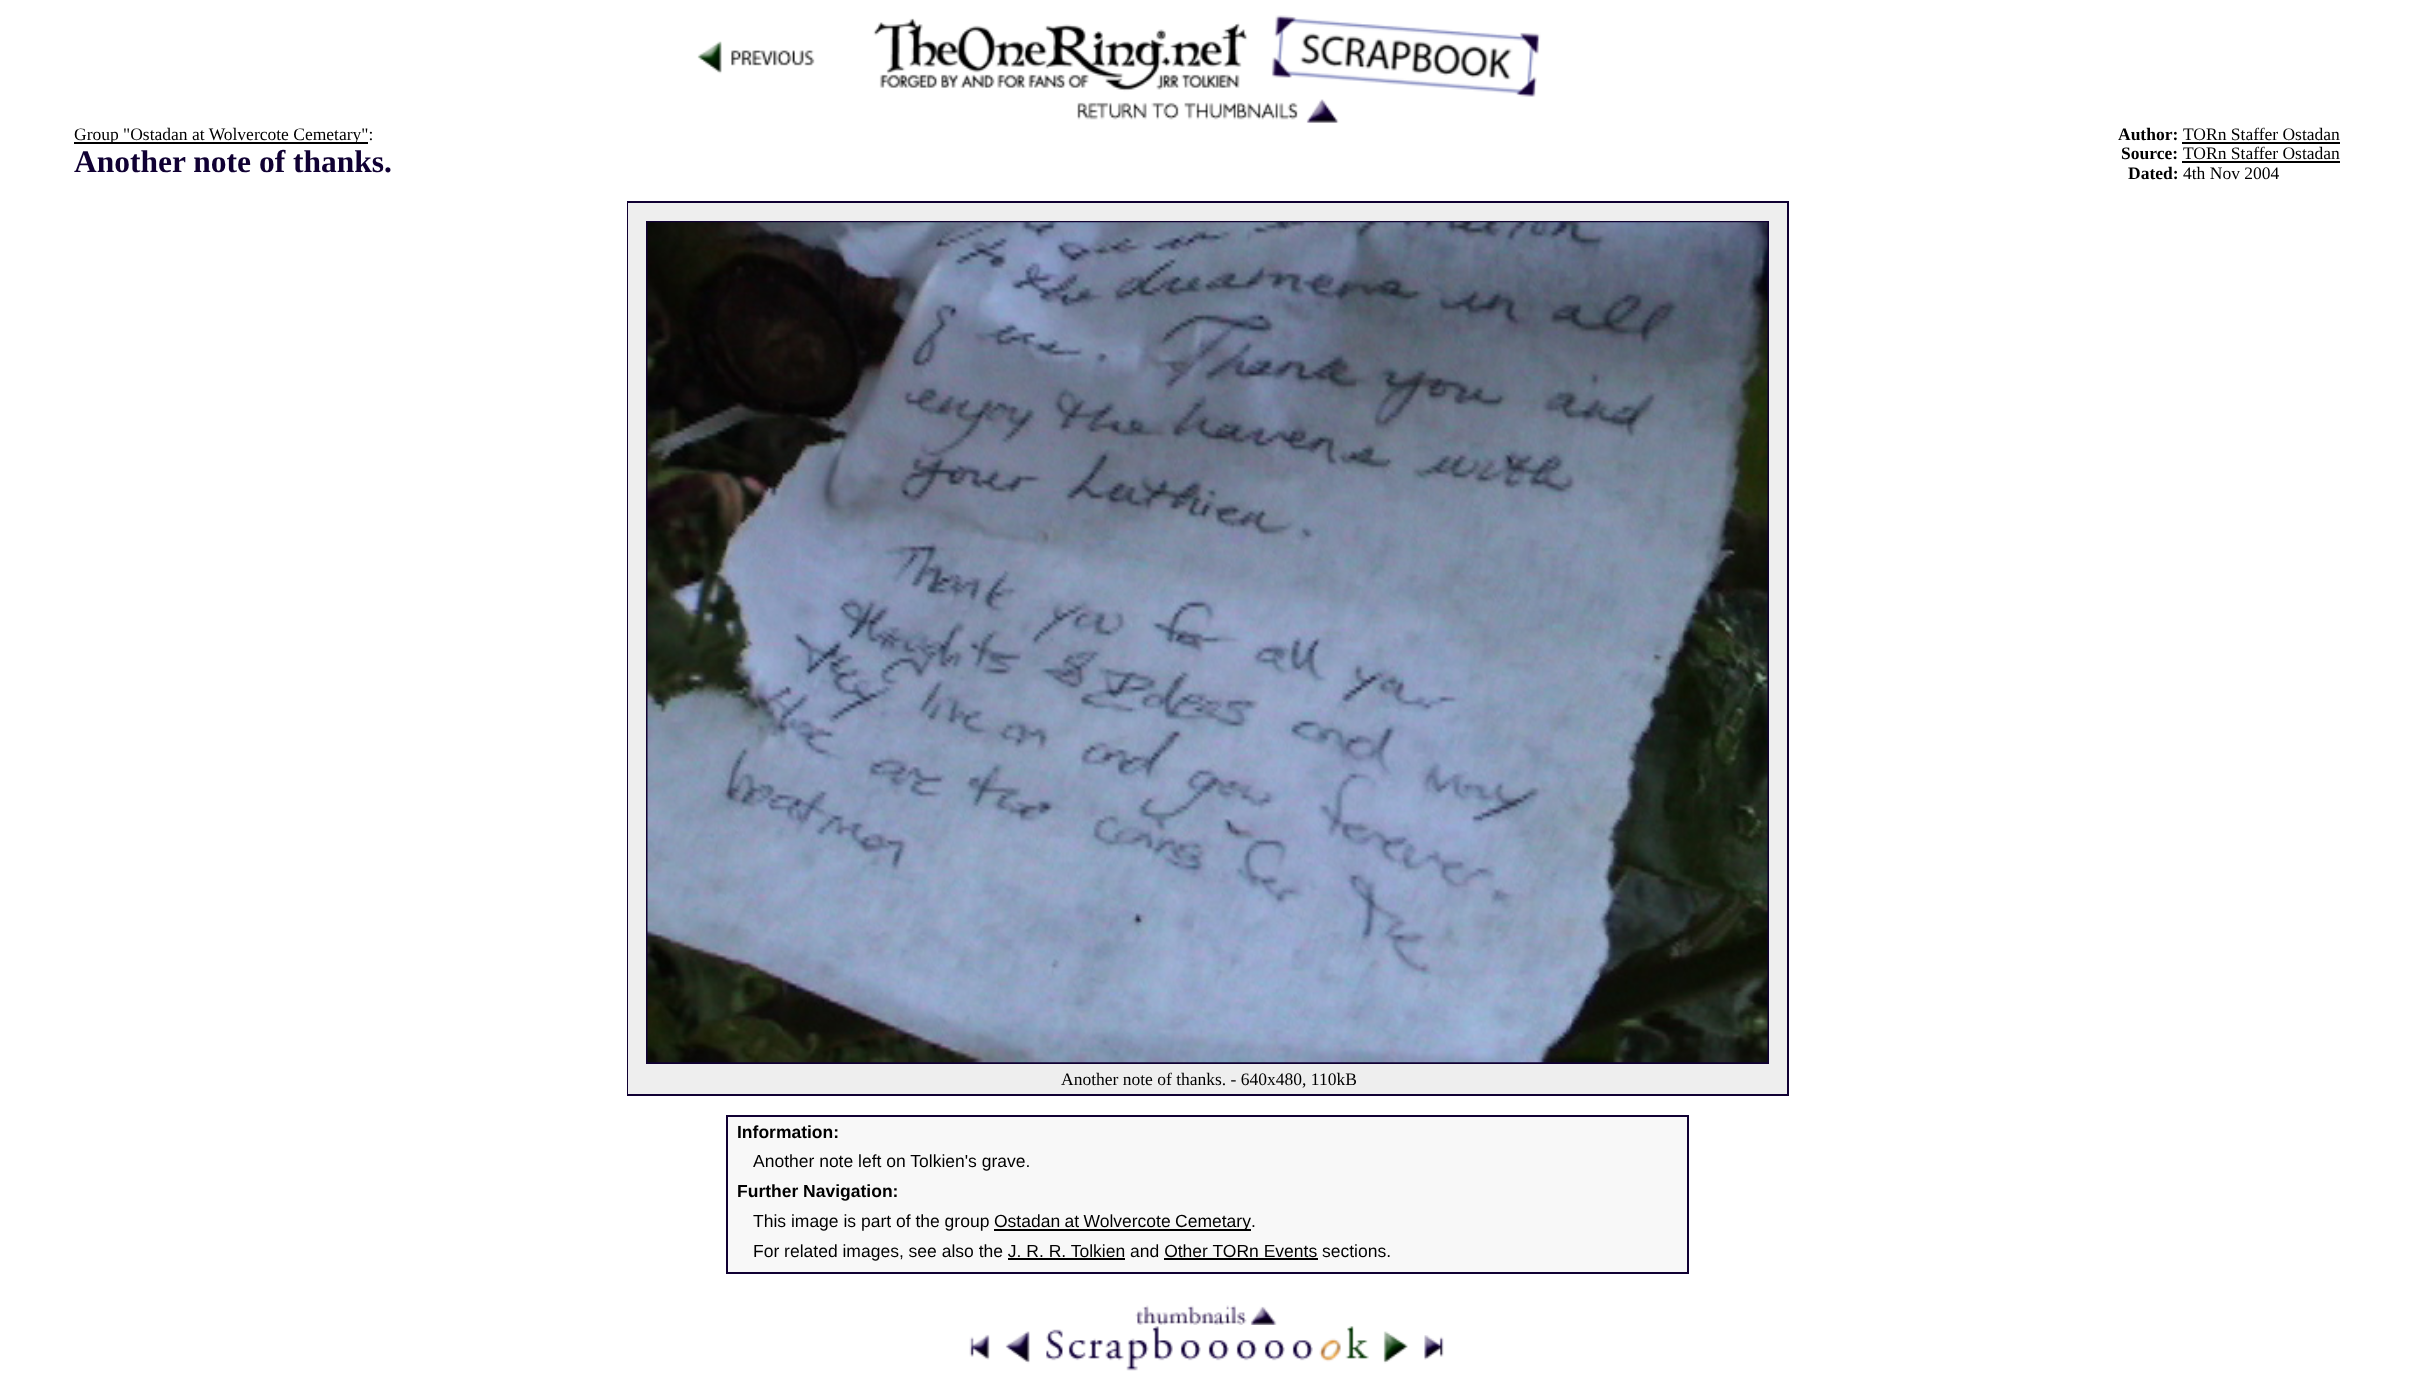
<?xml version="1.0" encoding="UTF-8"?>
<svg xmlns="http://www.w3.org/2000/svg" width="2412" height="1389">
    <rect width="100%" height="100%" fill="#FFFFFF"/>
    <image x="697" y="41" width="118" height="33" href="img_01.png"/>
    <image x="873" y="15" width="668" height="82" href="img_02.png"/>
    <image x="1077" y="99" width="262" height="24" href="img_03.png"/>
    <rect x="74" y="142" width="294" height="2" fill="#000000"/>
    <text x="74" y="140" font-family="Liberation Serif" font-size="17.5" fill="#000000">Group "Ostadan at Wolvercote Cemetary":</text>
    <text x="74" y="172" font-family="Liberation Serif" font-size="31.5" font-weight="700" fill="#100033">Another note of thanks.</text>
    <text x="2118" y="140" font-family="Liberation Serif" font-size="17.5" font-weight="700" fill="#000000">Author:</text>
    <text x="2183" y="140" font-family="Liberation Serif" font-size="17.5" fill="#000000">TORn Staffer Ostadan</text>
    <rect x="2182" y="142" width="158" height="2" fill="#000000"/>
    <text x="2121" y="159" font-family="Liberation Serif" font-size="17.5" font-weight="700" fill="#000000">Source:</text>
    <text x="2183" y="159" font-family="Liberation Serif" font-size="17.5" fill="#000000">TORn Staffer Ostadan</text>
    <rect x="2182" y="161" width="158" height="2" fill="#000000"/>
    <text x="2128" y="179" font-family="Liberation Serif" font-size="17.5" font-weight="700" fill="#000000">Dated:</text>
    <text x="2183" y="179" font-family="Liberation Serif" font-size="17.5" fill="#000000">4th Nov 2004</text>
    <rect x="628" y="202" width="1160" height="893" fill="none" stroke="#100033" stroke-width="2"/>
    <rect x="628" y="203" width="1159" height="891" fill="#EEEEEE"/>
    <rect x="647" y="222" width="1121" height="841" fill="none" stroke="#100033" stroke-width="2"/>
    <image x="647" y="222" width="1121" height="841" href="img_04.png"/>
    <text x="1061" y="1085" font-family="Liberation Serif" font-size="17.5" fill="#000000">Another note of thanks. - 640x480, 110kB</text>
    <rect x="727" y="1116" width="961" height="157" fill="#F8F8F8" stroke="#100033" stroke-width="2"/>
    <text x="737" y="1138" font-family="Liberation Sans" font-size="17.5" font-weight="700" fill="#000000">Information:</text>
    <text x="753" y="1167" font-family="Liberation Sans" font-size="17.5" fill="#000000">Another note left on Tolkien's grave.</text>
    <text x="737" y="1197" font-family="Liberation Sans" font-size="17.5" font-weight="700" fill="#000000">Further Navigation:</text>
    <text x="753" y="1227" font-family="Liberation Sans" font-size="17.5" fill="#000000">This image is part of the group</text>
    <rect x="994" y="1229" width="257" height="2" fill="#000000"/>
    <text x="994" y="1227" word-spacing="-0.5" font-family="Liberation Sans" font-size="17.5" fill="#000000">Ostadan at Wolvercote Cemetary</text>
    <text x="1251" y="1227" font-family="Liberation Sans" font-size="17.5" fill="#000000">.</text>
    <text x="753" y="1257" font-family="Liberation Sans" font-size="17.5" fill="#000000">For related images, see also the J. R. R. Tolkien and Other TORn Events sections.</text>
    <rect x="1008" y="1258" width="117" height="2" fill="#000000"/>
    <rect x="1164" y="1258" width="154" height="2" fill="#000000"/>
    <image x="1135" y="1305" width="142" height="20" href="img_05.png"/>
    <image x="969" y="1334" width="21" height="26" href="img_06.png"/>
    <image x="1005" y="1326" width="168" height="45" href="img_07.png"/>
    <image x="1180" y="1340" width="21" height="21" href="img_08.png"/>
    <image x="1208" y="1340" width="21" height="21" href="img_08.png"/>
    <image x="1236" y="1340" width="21" height="21" href="img_08.png"/>
    <image x="1264" y="1340" width="21" height="21" href="img_08.png"/>
    <image x="1292" y="1340" width="21" height="21" href="img_09.png"/>
    <image x="1319" y="1338" width="22" height="24" href="img_10.png"/>
    <image x="1345" y="1326" width="63" height="38" href="img_11.png"/>
    <image x="1424" y="1335" width="20" height="25" href="img_12.png"/>
</svg>
